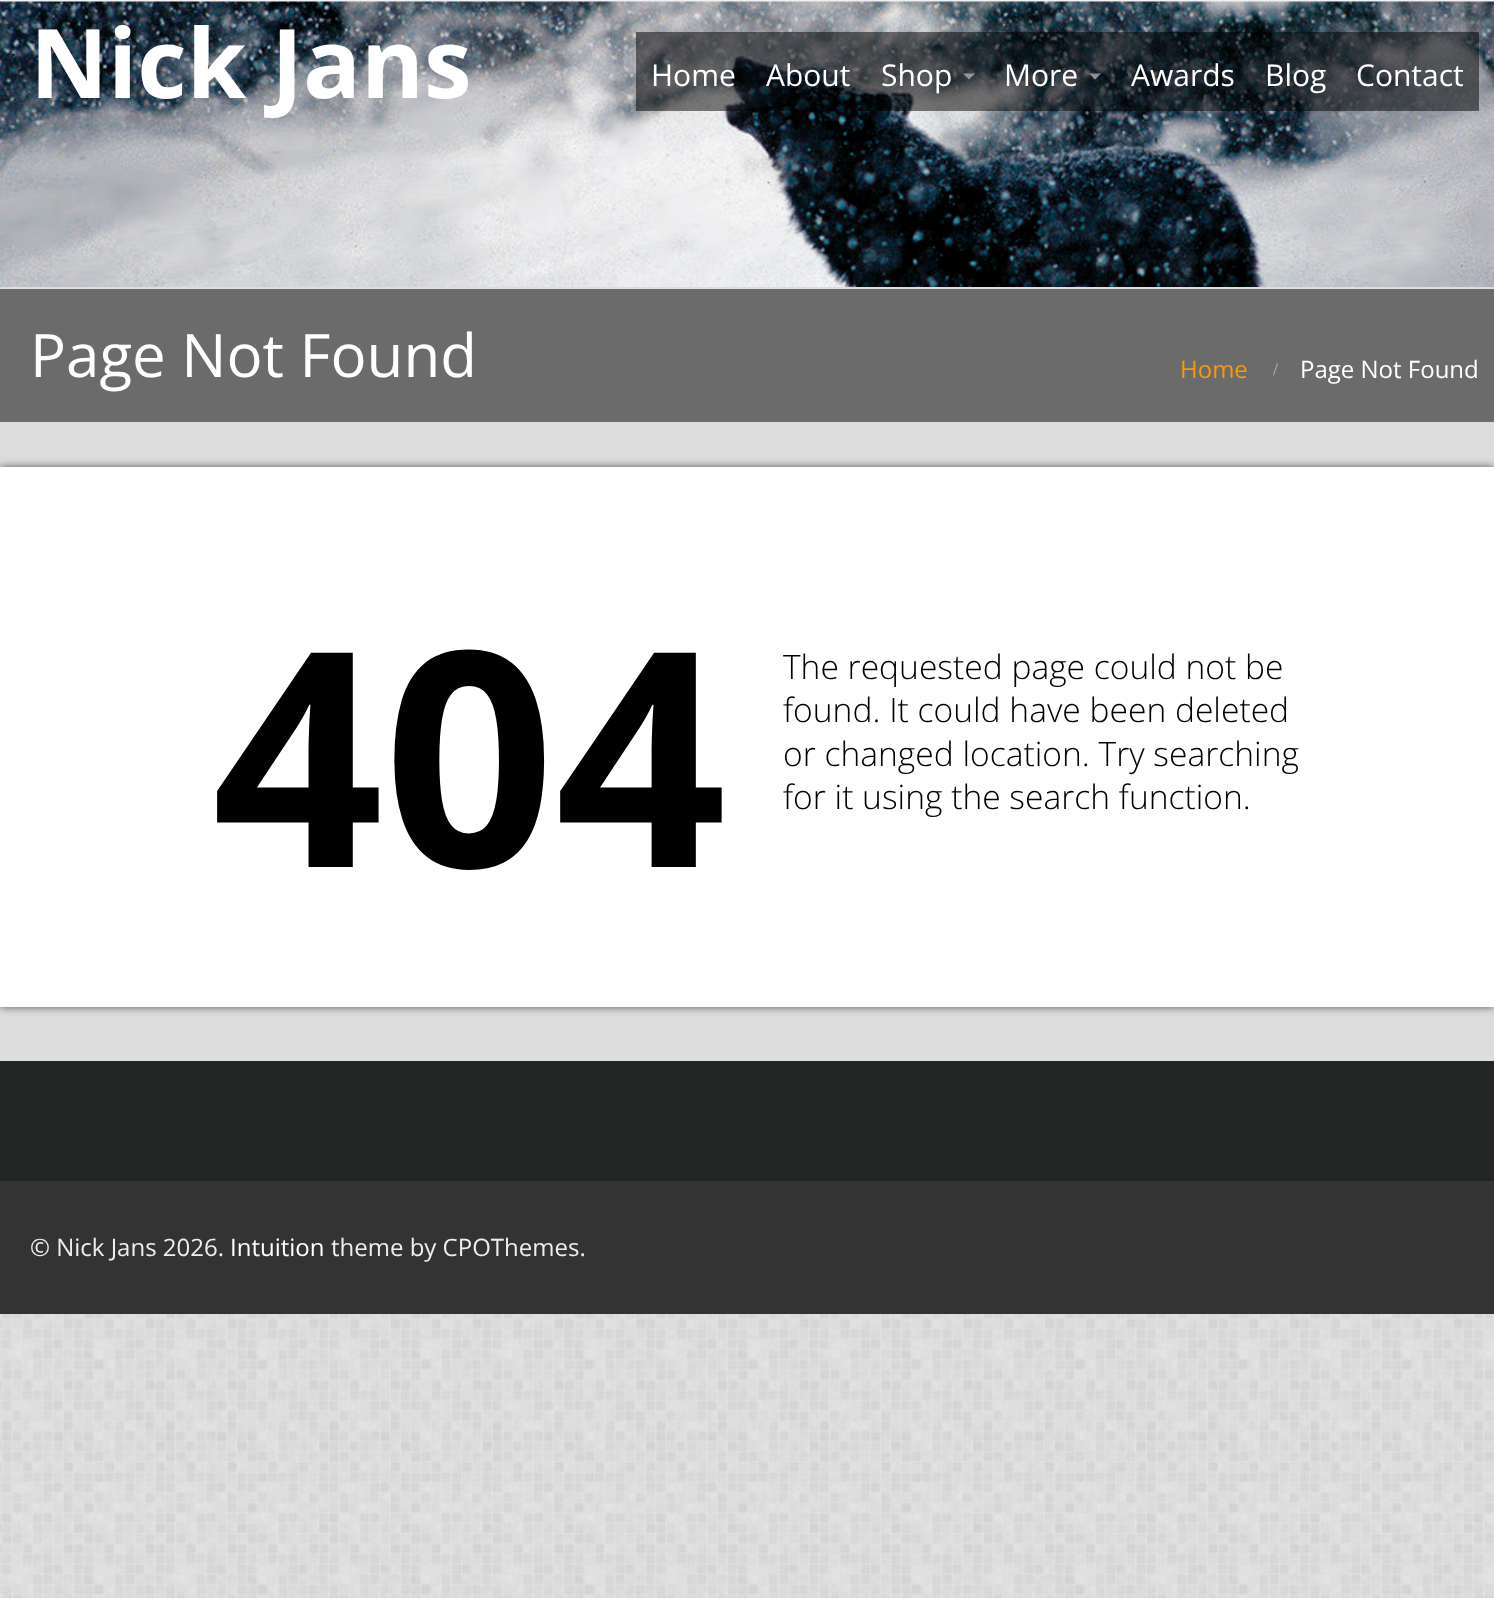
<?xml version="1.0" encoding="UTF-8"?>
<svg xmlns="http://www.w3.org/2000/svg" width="1494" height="1598">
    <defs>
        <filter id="blur1" x="-50%" y="-200%" width="200%" height="500%"><feGaussianBlur stdDeviation="4"/></filter>
    </defs>
    <rect width="100%" height="100%" fill="#FFFFFF"/>
    <image x="0" y="1314" width="1494" height="284" href="img_01.png"/>
    <rect x="0" y="0" width="1494" height="2" fill="#F0F0F0"/>
    <image x="0" y="1" width="1494" height="286" href="img_02.png"/>
    <rect x="0" y="287" width="1494" height="2" fill="#DDDDDD"/>
    <text x="30" y="98" font-family="Open Sans" font-size="96" font-weight="700" fill="#FFFFFF">Nick Jans</text>
    <rect x="636" y="32" width="843" height="79" fill="#000000" fill-opacity="0.5"/>
    <text x="651" y="86" font-family="Open Sans" font-size="30" fill="#FFFFFF">Home</text>
    <text x="766" y="86" font-family="Open Sans" font-size="30" fill="#FFFFFF">About</text>
    <text x="881" y="86" font-family="Open Sans" font-size="30" fill="#FFFFFF">Shop</text>
    <path d="M 963 73.5 H 975 L 969 79.5 Z" fill="#BBBBBB" fill-opacity="0.7"/>
    <text x="1004" y="86" font-family="Open Sans" font-size="30" fill="#FFFFFF">More</text>
    <path d="M 1089 73.5 H 1101 L 1095 79.5 Z" fill="#BBBBBB" fill-opacity="0.7"/>
    <text x="1131" y="86" font-family="Open Sans" font-size="30" fill="#FFFFFF">Awards</text>
    <text x="1265" y="86" font-family="Open Sans" font-size="30" fill="#FFFFFF">Blog</text>
    <text x="1356" y="86" font-family="Open Sans" font-size="30" fill="#FFFFFF">Contact</text>
    <rect x="0" y="289" width="1494" height="133" fill="#6B6B6B"/>
    <text x="30" y="377" font-family="Open Sans" font-size="60" fill="#FFFFFF">Page Not Found</text>
    <text x="1180" y="378" font-family="Open Sans" font-size="24" fill="#F59A0A">Home</text>
    <text x="1273" y="375" font-family="Liberation Serif" font-size="18" font-weight="700" fill="#A4A4A4">/</text>
    <text x="1300" y="378" font-family="Open Sans" font-size="24" fill="#FFFFFF">Page Not Found</text>
    <rect x="0" y="422" width="1494" height="639" fill="#DDDDDD"/>
    <rect x="0" y="467" width="1494" height="540" fill="#555555" filter="url(#blur1)"/>
    <rect x="0" y="467" width="1494" height="540" fill="#FFFFFF"/>
    <text x="212" y="867" font-family="Open Sans" font-size="300" font-weight="700" fill="#000000">404</text>
    <text font-family="Open Sans" font-size="33.6" font-weight="300" fill="#000000">
        <tspan x="783" y="679">The requested page could not be</tspan>
        <tspan x="783" y="722">found. It could have been deleted</tspan>
        <tspan x="783" y="766">or changed location. Try searching</tspan>
        <tspan x="783" y="809">for it using the search function.</tspan>
    </text>
    <rect x="0" y="1061" width="1494" height="120" fill="#222725"/>
    <rect x="0" y="1181" width="1494" height="133" fill="#333333"/>
    <text x="30" y="1256" font-family="Open Sans" font-size="24" fill="#EEEEEE">© Nick Jans 2026.</text>
    <text x="230" y="1256" font-family="Open Sans" font-size="24" fill="#FFFFFF">Intuition</text>
    <text x="331" y="1256" font-family="Open Sans" font-size="24" fill="#EEEEEE">theme by CPOThemes.</text>
</svg>
